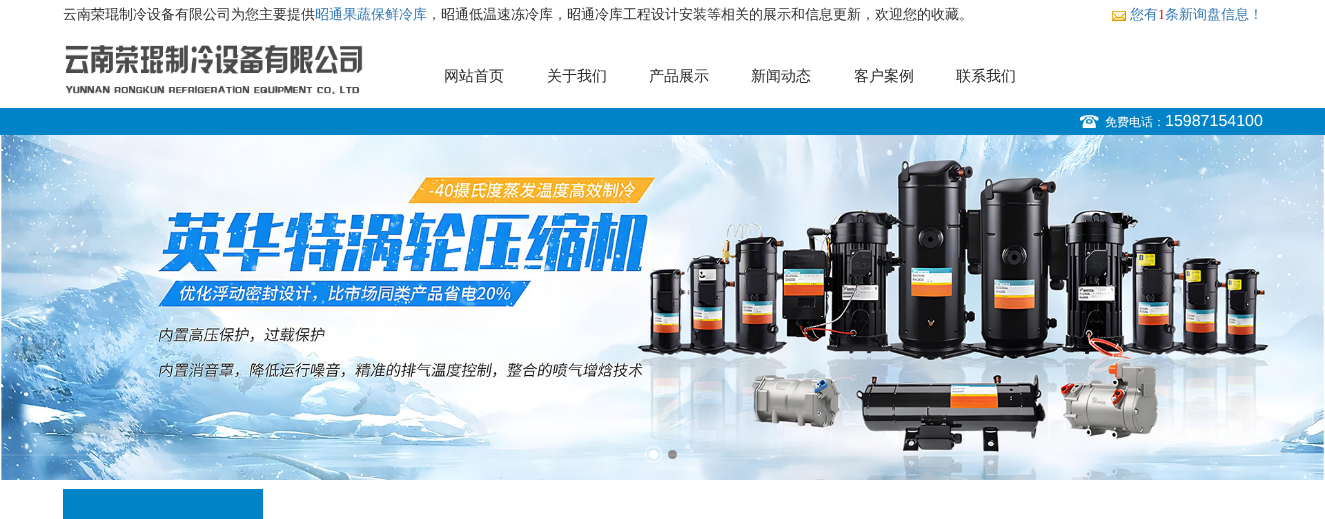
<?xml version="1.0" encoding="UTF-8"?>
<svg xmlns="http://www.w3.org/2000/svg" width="1325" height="519">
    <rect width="100%" height="100%" fill="#FFFFFF"/>
    <text x="63" y="19" font-family="WenQuanYi Zen Hei" font-size="14" font-weight="500" fill="#333333">云南荣琨制冷设备有限公司为您主要提供</text>
    <text x="315" y="19" font-family="WenQuanYi Zen Hei" font-size="14" font-weight="500" fill="#337AB7">昭通果蔬保鲜冷库</text>
    <text x="427" y="19" font-family="WenQuanYi Zen Hei" font-size="14" font-weight="500" fill="#333333">，昭通低温速冻冷库，昭通冷库工程设计安装等相关的展示和信息更新，欢迎您的收藏。</text>
    <image x="1112" y="11" width="14" height="10" href="img_01.png"/>
    <text x="1130" y="19" font-family="WenQuanYi Zen Hei" font-size="14" font-weight="500" fill="#337AB7">您有</text>
    <text x="1158" y="19" font-family="Liberation Serif" font-size="14" fill="#FF0000">1</text>
    <text x="1165" y="19" font-family="WenQuanYi Zen Hei" font-size="14" font-weight="500" fill="#337AB7">条新询盘信息！</text>
    <image x="65" y="45" width="298" height="49" href="img_02.png"/>
    <text x="444" y="81" font-family="WenQuanYi Zen Hei" font-size="15" font-weight="500" fill="#2C2C2C">网站首页</text>
    <text x="547" y="81" font-family="WenQuanYi Zen Hei" font-size="15" font-weight="500" fill="#2C2C2C">关于我们</text>
    <text x="649" y="81" font-family="WenQuanYi Zen Hei" font-size="15" font-weight="500" fill="#2C2C2C">产品展示</text>
    <text x="751" y="81" font-family="WenQuanYi Zen Hei" font-size="15" font-weight="500" fill="#2C2C2C">新闻动态</text>
    <text x="854" y="81" font-family="WenQuanYi Zen Hei" font-size="15" font-weight="500" fill="#2C2C2C">客户案例</text>
    <text x="956" y="81" font-family="WenQuanYi Zen Hei" font-size="15" font-weight="500" fill="#2C2C2C">联系我们</text>
    <rect x="0" y="108" width="1325" height="27" fill="#0083C7"/>
    <image x="1080" y="115" width="19" height="13" href="img_03.png"/>
    <text x="1105" y="126" font-family="WenQuanYi Zen Hei" font-size="12" font-weight="500" fill="#FFFFFF">免费电话：</text>
    <text x="1165" y="126" font-family="Liberation Sans" font-size="16" fill="#FFFFFF">15987154100</text>
    <image x="0" y="135" width="1325" height="345" href="img_04.png"/>
    <circle cx="653.5" cy="454.5" r="4.5" fill="#FFFFFF"/>
    <circle cx="653.5" cy="454.5" r="8" fill="none" stroke="#FFFFFF"/>
    <circle cx="672.5" cy="454.5" r="4.5" fill="#8F898B"/>
    <rect x="0" y="454" width="1325" height="2" fill="#FFFFFF" fill-opacity="0.1"/>
    <rect x="63" y="489" width="200" height="30" fill="#0083C7"/>
</svg>
